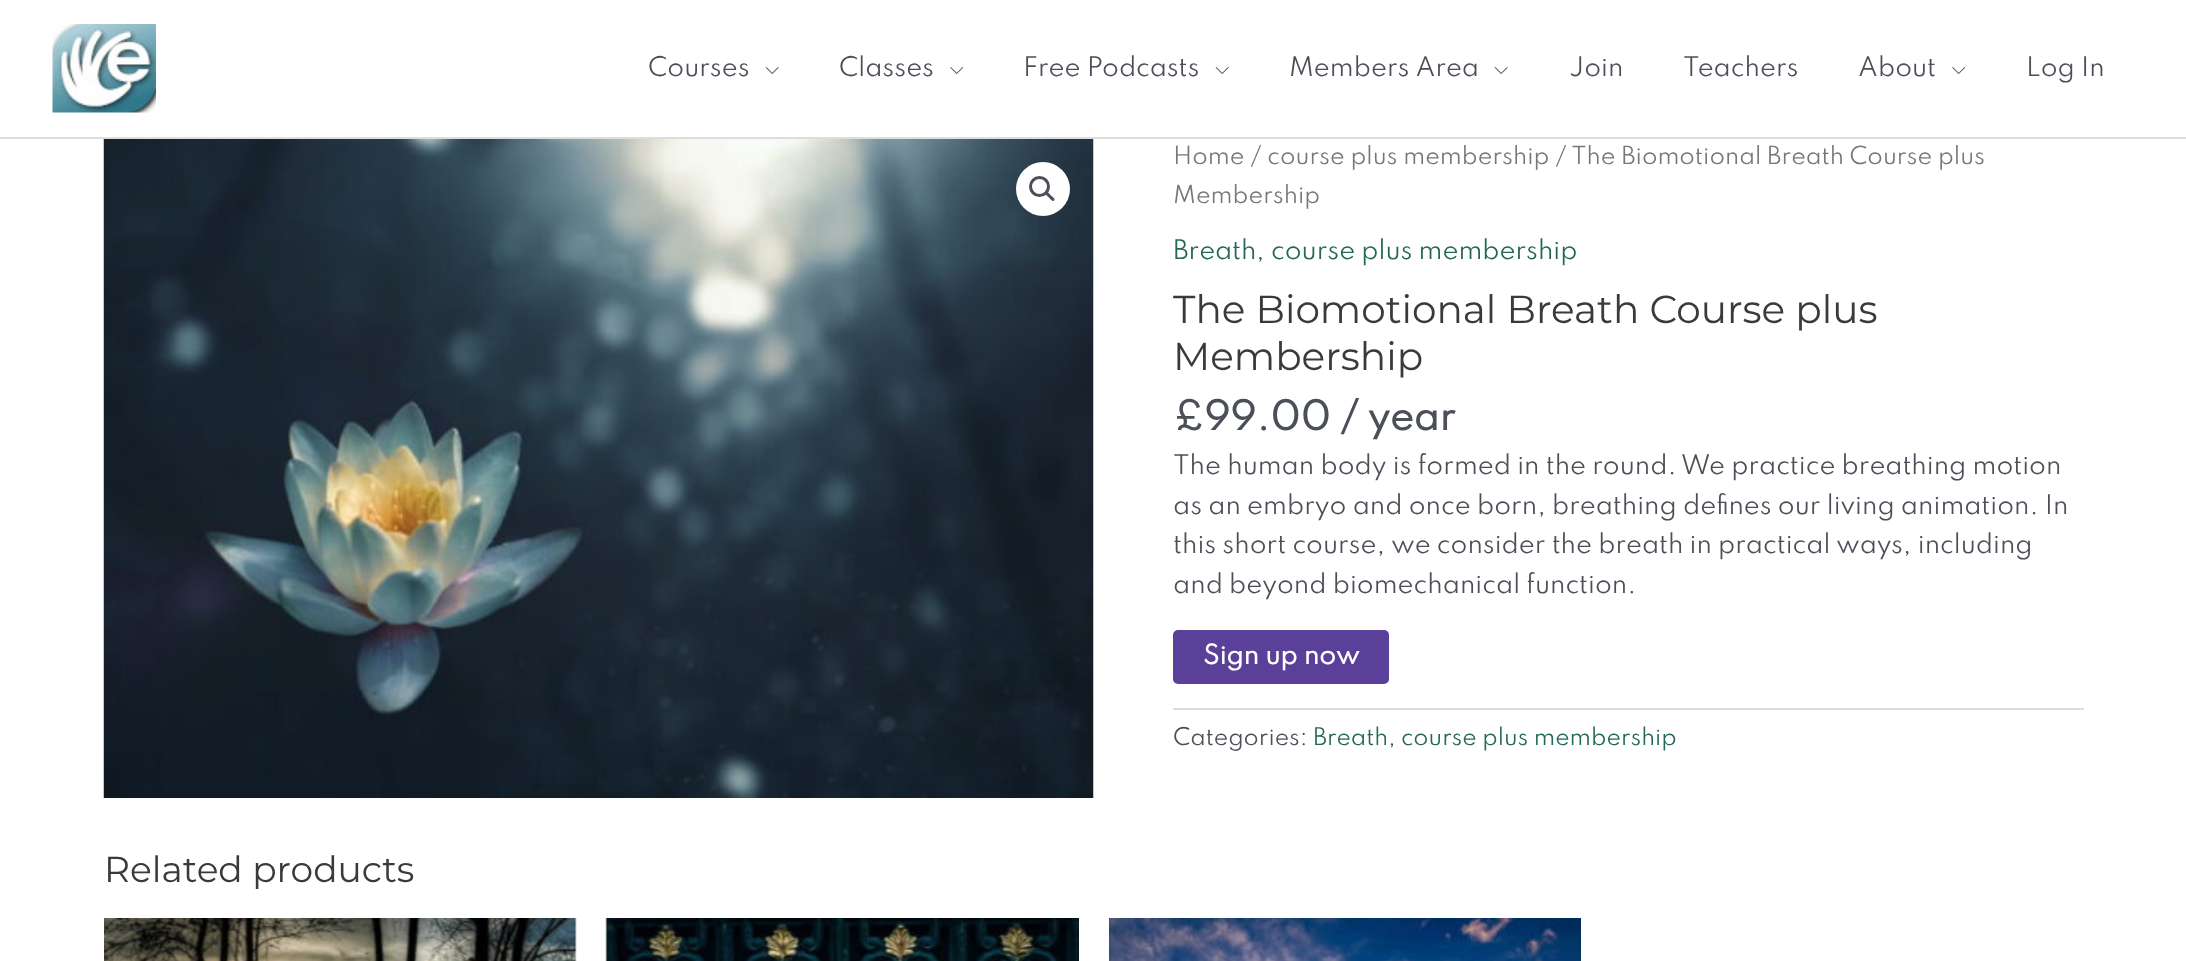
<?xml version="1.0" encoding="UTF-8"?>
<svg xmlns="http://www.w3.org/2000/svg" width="2186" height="961">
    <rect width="100%" height="100%" fill="#FFFFFF"/>
    <rect x="0" y="137" width="2186" height="2" fill="#DDDDDD"/>
    <image x="52" y="24" width="104" height="89" href="img_01.png"/>
    <text x="648" y="76" font-family="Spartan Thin" font-size="24" font-weight="100" fill="#4B4F58">Courses</text>
    <image x="765" y="67" width="14" height="7" href="img_02.png"/>
    <text x="839" y="76" font-family="Spartan Thin" font-size="24" font-weight="100" fill="#4B4F58">Classes</text>
    <image x="950" y="67" width="14" height="7" href="img_03.png"/>
    <text x="1023" y="76" font-family="Spartan Thin" font-size="24" font-weight="100" fill="#4B4F58">Free Podcasts</text>
    <image x="1215" y="67" width="14" height="7" href="img_02.png"/>
    <text x="1289" y="76" font-family="Spartan Thin" font-size="24" font-weight="100" fill="#4B4F58">Members Area</text>
    <image x="1494" y="67" width="14" height="7" href="img_02.png"/>
    <text x="1569" y="76" font-family="Spartan Thin" font-size="24" font-weight="100" fill="#4B4F58">Join</text>
    <text x="1683" y="76" font-family="Spartan Thin" font-size="24" font-weight="100" fill="#4B4F58">Teachers</text>
    <text x="1858" y="76" font-family="Spartan Thin" font-size="24" font-weight="100" fill="#4B4F58">About</text>
    <image x="1952" y="67" width="14" height="7" href="img_03.png"/>
    <text x="2026" y="76" font-family="Spartan Thin" font-size="24" font-weight="100" fill="#4B4F58">Log In</text>
    <image x="103" y="139" width="991" height="659" href="img_04.png"/>
    <circle cx="1043" cy="189" r="27" fill="#FFFFFF"/>
    <circle cx="1039.5" cy="186.5" r="9" fill="none" stroke="#4B4F58" stroke-width="3"/>
    <path d="M 1046 192.5 C 1047.5 190.5 1050 194.5 1051 195.5 C 1052 196.5 1056 199 1054 200.5 C 1052.5 202.5 1050 198.5 1049 197.5 C 1048 196.5 1044 194 1046 192.5 Z" fill="#4B4F58"/>
    <text font-family="Spartan Thin" font-size="22.1" font-weight="100" fill="#777777">
        <tspan x="1173" y="164">Home / course plus membership / The Biomotional Breath Course plus</tspan>
        <tspan x="1173" y="203">Membership</tspan>
    </text>
    <text x="1173" y="259" font-family="Spartan Thin" font-size="24" font-weight="100" fill="#226757">Breath</text>
    <text x="1256" y="259" font-family="Spartan Thin" font-size="24" font-weight="100" fill="#4B4F58">,</text>
    <text x="1271" y="259" font-family="Spartan Thin" font-size="24" font-weight="100" fill="#226757">course plus membership</text>
    <text font-family="Montserrat" font-size="39" fill="#3A3A3A">
        <tspan x="1173" y="323">The Biomotional Breath Course plus</tspan>
        <tspan x="1173" y="370">Membership</tspan>
    </text>
    <text x="1173" y="430" font-family="Spartan Thin" font-size="36" font-weight="700" fill="#4B4F58">£99.00 / year</text>
    <text font-family="Spartan Thin" font-size="24" font-weight="100" fill="#4B4F58">
        <tspan x="1173" y="474">The human body is formed in the round. We practice breathing motion</tspan>
        <tspan x="1173" y="514">as an embryo and once born, breathing defines our living animation. In</tspan>
        <tspan x="1173" y="553">this short course, we consider the breath in practical ways, including</tspan>
        <tspan x="1173" y="593">and beyond biomechanical function.</tspan>
    </text>
    <rect x="1173" y="630" width="216" height="54" rx="5" fill="#5B4099"/>
    <text x="1203" y="664" font-family="Spartan Thin" font-size="24" font-weight="700" fill="#FFFFFF">Sign up now</text>
    <rect x="1173" y="708" width="911" height="2" fill="#DDDDDD"/>
    <text x="1173" y="745" font-family="Spartan Thin" font-size="21.6" font-weight="100" fill="#4B4F58">Categories:</text>
    <text x="1313" y="745" font-family="Spartan Thin" font-size="21.6" font-weight="100" fill="#226757">Breath</text>
    <text x="1388" y="745" font-family="Spartan Thin" font-size="21.6" font-weight="100" fill="#4B4F58">,</text>
    <text x="1401" y="745" font-family="Spartan Thin" font-size="21.6" font-weight="100" fill="#226757">course plus membership</text>
    <text x="104" y="882" font-family="Montserrat" font-size="36" fill="#3A3A3A">Related products</text>
    <image x="104" y="918" width="473" height="43" href="img_05.png"/>
    <image x="605" y="918" width="474" height="43" href="img_06.png"/>
    <image x="1109" y="918" width="472" height="43" href="img_07.png"/>
</svg>
